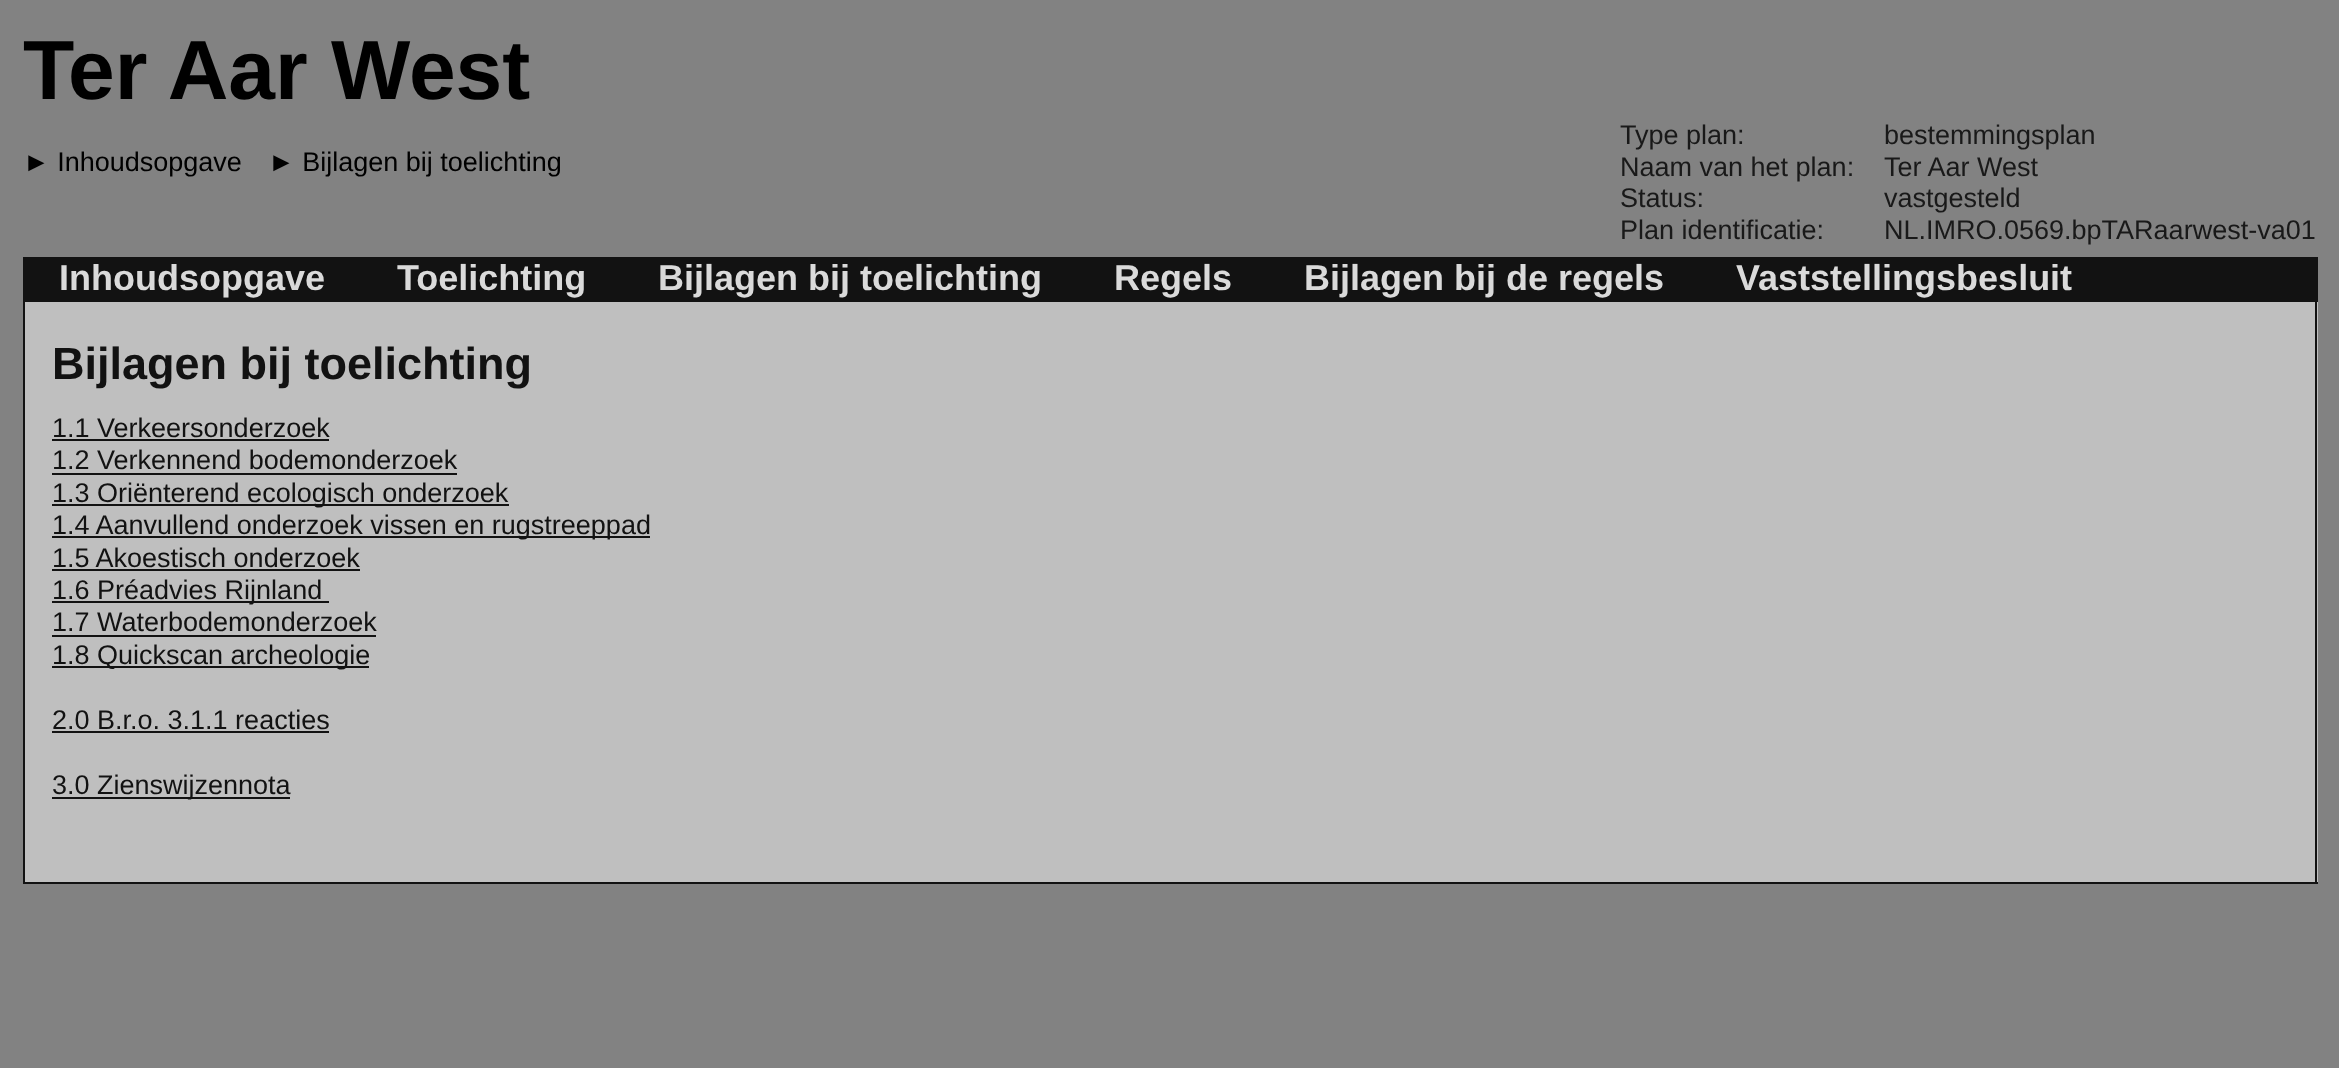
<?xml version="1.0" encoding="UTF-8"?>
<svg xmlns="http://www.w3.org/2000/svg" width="2339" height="1068">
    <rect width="100%" height="100%" fill="#828282"/>
    <text x="23" y="99" font-family="Liberation Sans" font-size="84" font-weight="700" fill="#000000">Ter Aar West</text>
    <text x="23" y="171" font-family="Liberation Sans" font-size="27" fill="#000000">► Inhoudsopgave</text>
    <text x="268" y="171" font-family="Liberation Sans" font-size="27" fill="#000000">► Bijlagen bij toelichting</text>
    <text x="1620" y="144" font-family="Liberation Sans" font-size="27" fill="#191919">Type plan:</text>
    <text x="1884" y="144" font-family="Liberation Sans" font-size="27" fill="#191919">bestemmingsplan</text>
    <text x="1620" y="176" font-family="Liberation Sans" font-size="27" fill="#191919">Naam van het plan:</text>
    <text x="1884" y="176" font-family="Liberation Sans" font-size="27" fill="#191919">Ter Aar West</text>
    <text x="1620" y="207" font-family="Liberation Sans" font-size="27" fill="#191919">Status:</text>
    <text x="1884" y="207" font-family="Liberation Sans" font-size="27" fill="#191919">vastgesteld</text>
    <text x="1620" y="239" font-family="Liberation Sans" font-size="27" fill="#191919">Plan identificatie:</text>
    <text x="1884" y="239" font-family="Liberation Sans" font-size="27" fill="#191919">NL.IMRO.0569.bpTARaarwest-va01</text>
    <rect x="23" y="257" width="2295" height="45" fill="#121212"/>
    <text x="59" y="290" font-family="Liberation Sans" font-size="36" font-weight="700" fill="#DADADA">Inhoudsopgave</text>
    <text x="397" y="290" font-family="Liberation Sans" font-size="36" font-weight="700" fill="#DADADA">Toelichting</text>
    <text x="658" y="290" font-family="Liberation Sans" font-size="36" font-weight="700" fill="#DADADA">Bijlagen bij toelichting</text>
    <text x="1114" y="290" font-family="Liberation Sans" font-size="36" font-weight="700" fill="#DADADA">Regels</text>
    <text x="1304" y="290" font-family="Liberation Sans" font-size="36" font-weight="700" fill="#DADADA">Bijlagen bij de regels</text>
    <text x="1736" y="290" font-family="Liberation Sans" font-size="36" font-weight="700" fill="#DADADA">Vaststellingsbesluit</text>
    <rect x="25" y="302" width="2293" height="580" fill="#BFBFBF"/>
    <rect x="2315" y="302" width="2" height="582" fill="#121212"/>
    <rect x="23" y="882" width="2295" height="2" fill="#121212"/>
    <rect x="23" y="302" width="2" height="582" fill="#121212"/>
    <text x="52" y="379" font-family="Liberation Sans" font-size="45" font-weight="700" fill="#121212">Bijlagen bij toelichting</text>
    <text x="52" y="437" font-family="Liberation Sans" font-size="27" fill="#121212">1.1 Verkeersonderzoek</text>
    <rect x="52" y="439" width="277" height="2" fill="#121212"/>
    <text x="52" y="469" font-family="Liberation Sans" font-size="27" fill="#121212">1.2 Verkennend bodemonderzoek</text>
    <rect x="52" y="473" width="405" height="2" fill="#121212"/>
    <rect x="52" y="504" width="457" height="2" fill="#121212"/>
    <text x="52" y="502" font-family="Liberation Sans" font-size="27" fill="#121212">1.3 Oriënterend ecologisch onderzoek</text>
    <rect x="52" y="536" width="598" height="2" fill="#121212"/>
    <text font-family="Liberation Sans" font-size="27" fill="#121212">
        <tspan x="52" y="534">1.4 Aanvullend onderzoek vissen en rugstreeppad</tspan>
        <tspan x="52" y="567">1.5 Akoestisch onderzoek</tspan>
    </text>
    <rect x="52" y="569" width="308" height="2" fill="#121212"/>
    <rect x="52" y="601" width="277" height="2" fill="#121212"/>
    <text font-family="Liberation Sans" font-size="27" fill="#121212">
        <tspan x="52" y="599">1.6 Préadvies Rijnland</tspan>
        <tspan x="52" y="631">1.7 Waterbodemonderzoek</tspan>
    </text>
    <rect x="52" y="635" width="324" height="2" fill="#121212"/>
    <rect x="52" y="666" width="317" height="2" fill="#121212"/>
    <text x="52" y="664" font-family="Liberation Sans" font-size="27" fill="#121212">1.8 Quickscan archeologie</text>
    <text x="52" y="729" font-family="Liberation Sans" font-size="27" fill="#121212">2.0 B.r.o. 3.1.1 reacties</text>
    <rect x="52" y="731" width="277" height="2" fill="#121212"/>
    <rect x="52" y="797" width="238" height="2" fill="#121212"/>
    <text x="52" y="794" font-family="Liberation Sans" font-size="27" fill="#121212">3.0 Zienswijzennota</text>
</svg>
